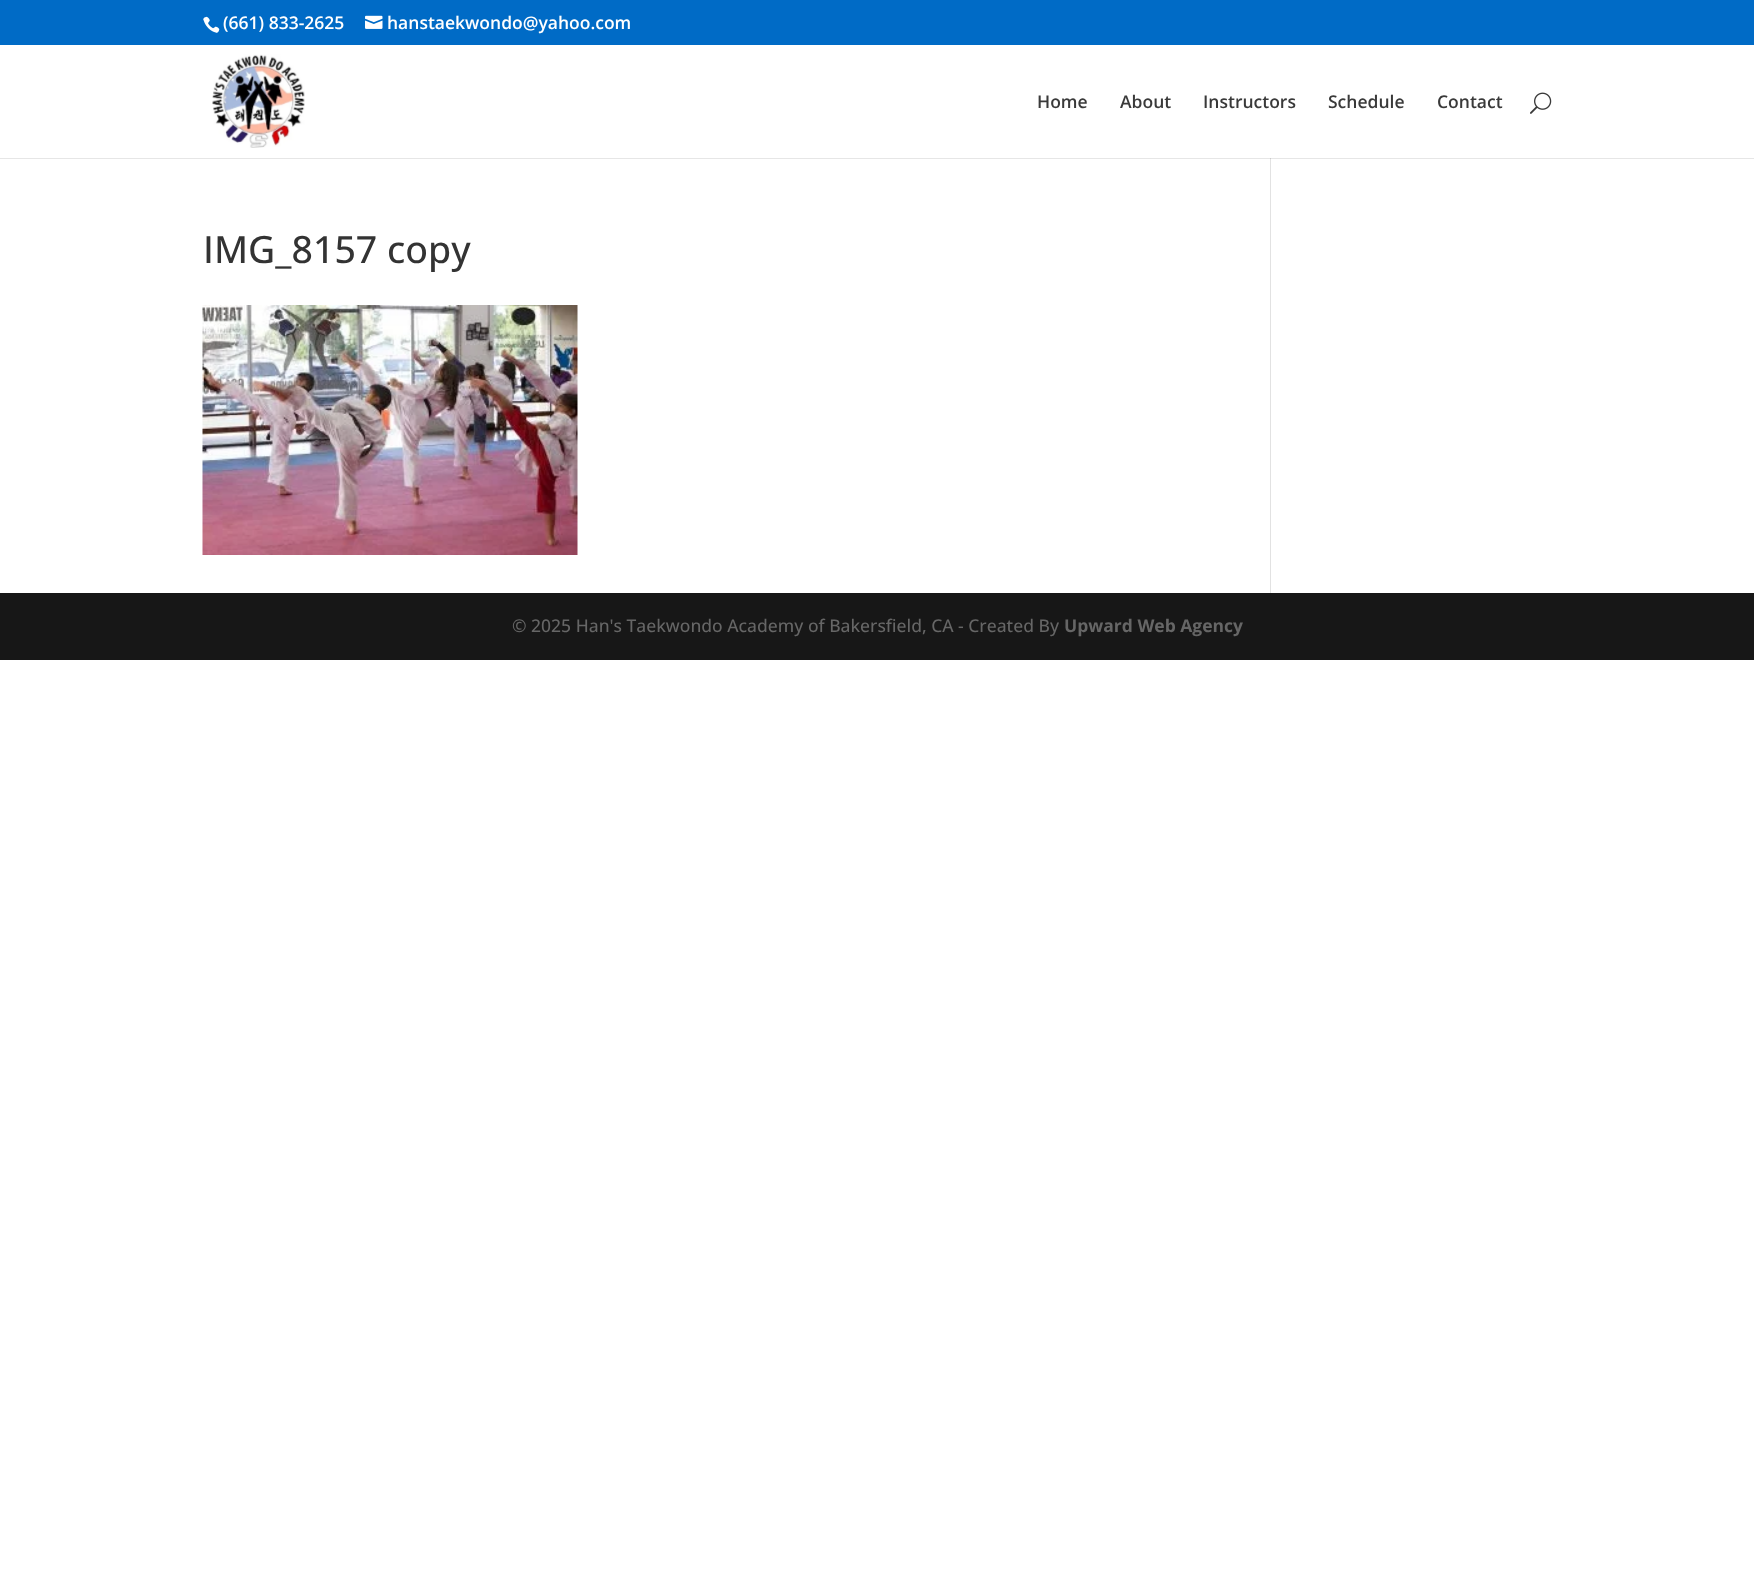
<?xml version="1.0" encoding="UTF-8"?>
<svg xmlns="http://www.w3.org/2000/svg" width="1754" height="1589">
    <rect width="100%" height="100%" fill="#FFFFFF"/>
    <rect x="0" y="158" width="1754" height="1" fill="#E6E6E6"/>
    <rect x="0" y="0" width="1754" height="45" fill="#006BC6"/>
    <image x="203" y="16" width="17" height="17" href="img_01.png"/>
    <text x="223" y="29" font-family="Open Sans" font-size="17.5" font-weight="600" fill="#FFFFFF">(661) 833-2625</text>
    <image x="365" y="15" width="18" height="14" href="img_02.png"/>
    <text x="387" y="29" font-family="Open Sans" font-size="17.5" font-weight="600" fill="#FFFFFF">hanstaekwondo@yahoo.com</text>
    <image x="212" y="54" width="93" height="94" href="img_03.png"/>
    <text x="1037" y="108" font-family="Open Sans" font-size="17.5" font-weight="600" fill="#3A3A3A">Home</text>
    <text x="1120" y="108" font-family="Open Sans" font-size="17.5" font-weight="600" fill="#3A3A3A">About</text>
    <text x="1203" y="108" font-family="Open Sans" font-size="17.5" font-weight="600" fill="#3A3A3A">Instructors</text>
    <text x="1328" y="108" font-family="Open Sans" font-size="17.5" font-weight="600" fill="#3A3A3A">Schedule</text>
    <text x="1437" y="108" font-family="Open Sans" font-size="17.5" font-weight="600" fill="#3A3A3A">Contact</text>
    <image x="1530" y="92" width="22" height="22" href="img_04.png"/>
    <text x="203" y="263" font-family="Open Sans" font-size="37.5" font-weight="500" fill="#333333">IMG_8157 copy</text>
    <image x="202" y="305" width="376" height="250" href="img_05.png"/>
    <rect x="1270" y="158" width="1" height="435" fill="#E2E2E2"/>
    <rect x="1270" y="158" width="1" height="1" fill="#CBCBCB"/>
    <rect x="0" y="593" width="1754" height="67" fill="#171717"/>
    <text x="512" y="632" font-family="Open Sans" font-size="17.5" font-weight="500" fill="#666666">© 2025 Han's Taekwondo Academy of Bakersfield, CA - Created By</text>
    <text x="1064" y="632" font-family="Open Sans" font-size="17.5" font-weight="700" fill="#666666">Upward Web Agency</text>
</svg>
